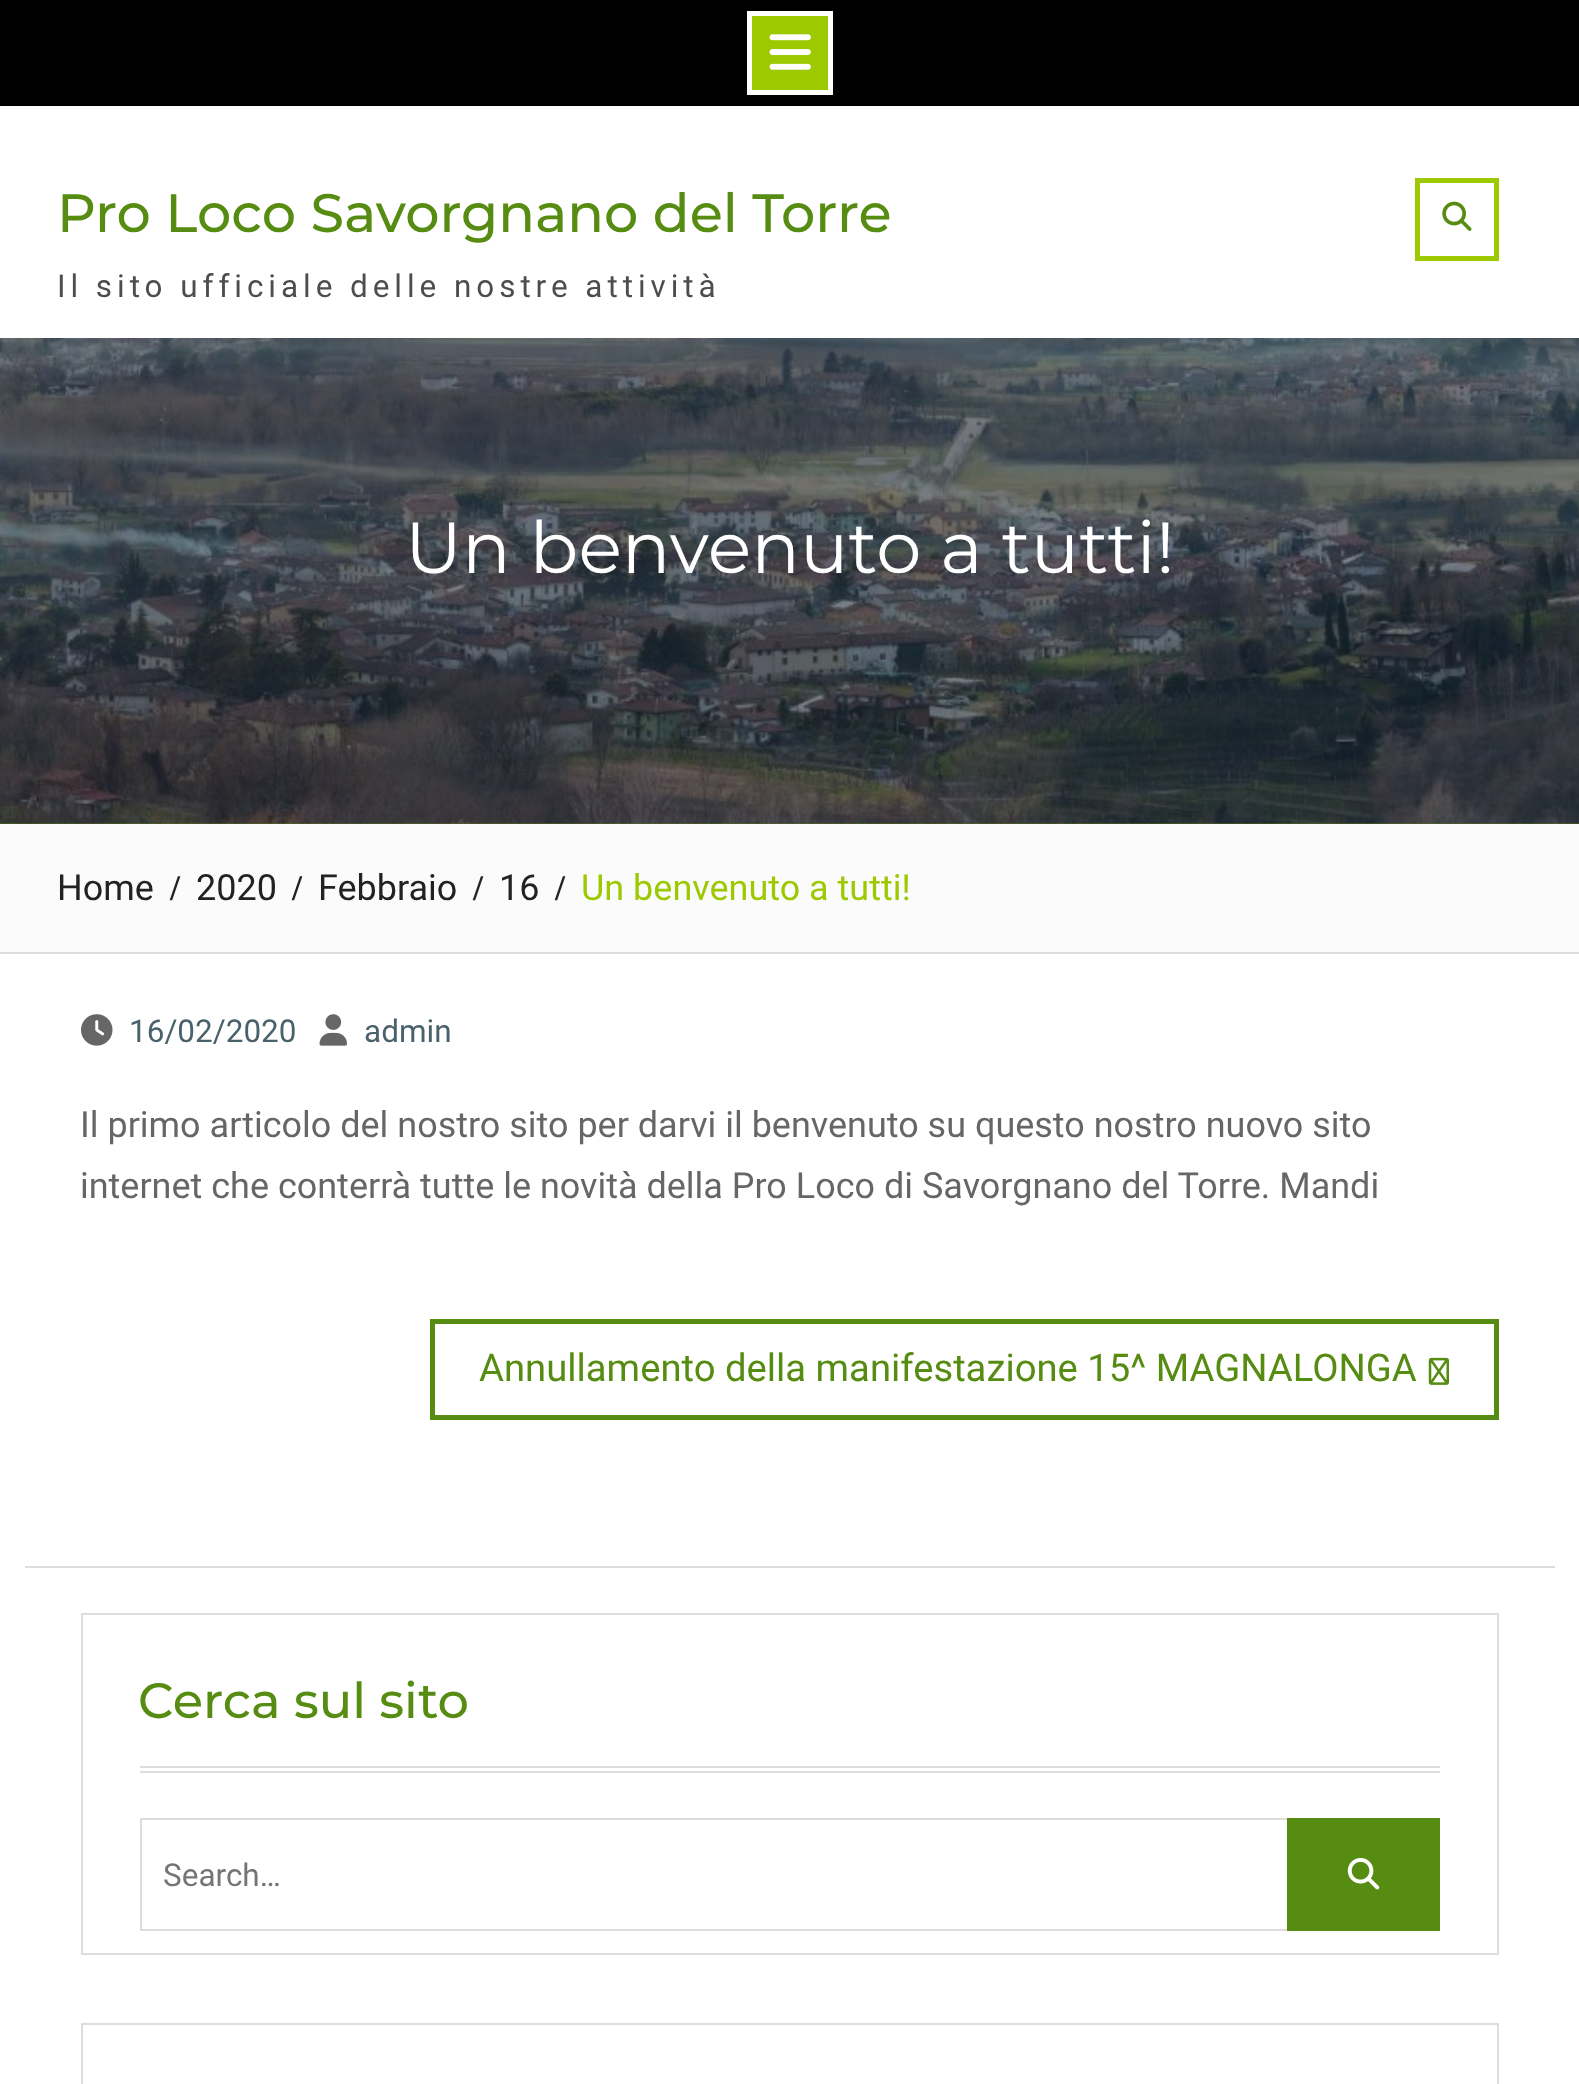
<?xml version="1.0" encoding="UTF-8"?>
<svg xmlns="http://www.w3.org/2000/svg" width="1579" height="2084">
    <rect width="100%" height="100%" fill="#FFFFFF"/>
    <rect x="0" y="0" width="1579" height="106" fill="#000000"/>
    <rect x="749.5" y="13.5" width="81" height="79" fill="#9CC900" stroke="#FFFFFE" stroke-width="5"/>
    <image x="769" y="34" width="42" height="36" href="img_01.png"/>
    <text x="57" y="232" font-family="Montserrat" font-size="54" font-weight="100" fill="#568C11">Pro Loco Savorgnano del Torre</text>
    <text x="57" y="297" font-family="Roboto" font-size="31.5" letter-spacing="4.95" fill="#4D4D4D">Il sito ufficiale delle nostre attività</text>
    <rect x="1417.5" y="180.5" width="79" height="78" fill="none" stroke="#9CC900" stroke-width="5"/>
    <image x="1442" y="201" width="30" height="30" href="img_02.png"/>
    <rect x="0" y="823" width="1579" height="1" fill="#4E6E16"/>
    <image x="0" y="338" width="1579" height="486" href="img_03.png"/>
    <text x="405" y="573" font-family="'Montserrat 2'" font-size="72" font-weight="100" fill="#FFFFFF">Un benvenuto a tutti!</text>
    <rect x="0" y="824" width="1579" height="128" fill="#FBFBFB"/>
    <rect x="0" y="952" width="1579" height="2" fill="#DDDDDD"/>
    <text x="57" y="900" font-family="Roboto" font-size="36" fill="#222222">Home</text>
    <text x="170" y="900" font-family="Liberation Serif" font-size="36" font-weight="700" fill="#222222">/</text>
    <text x="196" y="900" font-family="Roboto" font-size="36" fill="#222222">2020</text>
    <text x="292" y="900" font-family="Liberation Serif" font-size="36" font-weight="700" fill="#222222">/</text>
    <text x="318" y="900" font-family="Roboto" font-size="36" fill="#222222">Febbraio</text>
    <text x="473" y="900" font-family="Liberation Serif" font-size="36" font-weight="700" fill="#222222">/</text>
    <text x="499" y="900" font-family="Roboto" font-size="36" fill="#222222">16</text>
    <text x="555" y="900" font-family="Liberation Serif" font-size="36" font-weight="700" fill="#222222">/</text>
    <text x="581" y="900" font-family="Roboto" font-size="36" fill="#9CC900">Un benvenuto a tutti!</text>
    <rect x="25" y="1566" width="1530" height="2" fill="#DDDDDD"/>
    <image x="81" y="1014" width="32" height="32" href="img_04.png"/>
    <text x="129" y="1042" font-family="Roboto" font-size="31.5" fill="#49616B">16/02/2020</text>
    <image x="319" y="1014" width="28" height="32" href="img_05.png"/>
    <text x="364" y="1042" font-family="Roboto" font-size="31.5" fill="#49616B">admin</text>
    <text font-family="Roboto" font-size="36" fill="#666666">
        <tspan x="80" y="1137">Il primo articolo del nostro sito per darvi il benvenuto su questo nostro nuovo sito</tspan>
        <tspan x="80" y="1198">internet che conterrà tutte le novità della Pro Loco di Savorgnano del Torre. Mandi</tspan>
    </text>
    <rect x="432.5" y="1321.5" width="1064" height="96" fill="none" stroke="#568C11" stroke-width="5"/>
    <text x="479" y="1381" font-family="Roboto" font-size="38.25" fill="#568C11">Annullamento della manifestazione 15^ MAGNALONGA</text>
    <image x="1428" y="1357" width="21" height="28" href="img_06.png"/>
    <rect x="82" y="1614" width="1416" height="340" fill="none" stroke="#DDDDDD" stroke-width="2"/>
    <rect x="140" y="1766" width="1300" height="2" fill="#DDDDDD"/>
    <rect x="140" y="1771" width="1300" height="2" fill="#DDDDDD"/>
    <text x="138" y="1718" font-family="Montserrat" font-size="49.5" font-weight="100" fill="#568C11">Cerca sul sito</text>
    <rect x="141" y="1819" width="1273" height="111" fill="none" stroke="#DDDDDD" stroke-width="2"/>
    <text x="163" y="1886" font-family="Roboto" font-size="31.5" fill="#757575">Search…</text>
    <rect x="1287" y="1818" width="153" height="113" fill="#568C11"/>
    <image x="1347" y="1857" width="33" height="33" href="img_07.png"/>
    <rect x="82" y="2024" width="1416" height="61" fill="none" stroke="#DDDDDD" stroke-width="2"/>
</svg>
